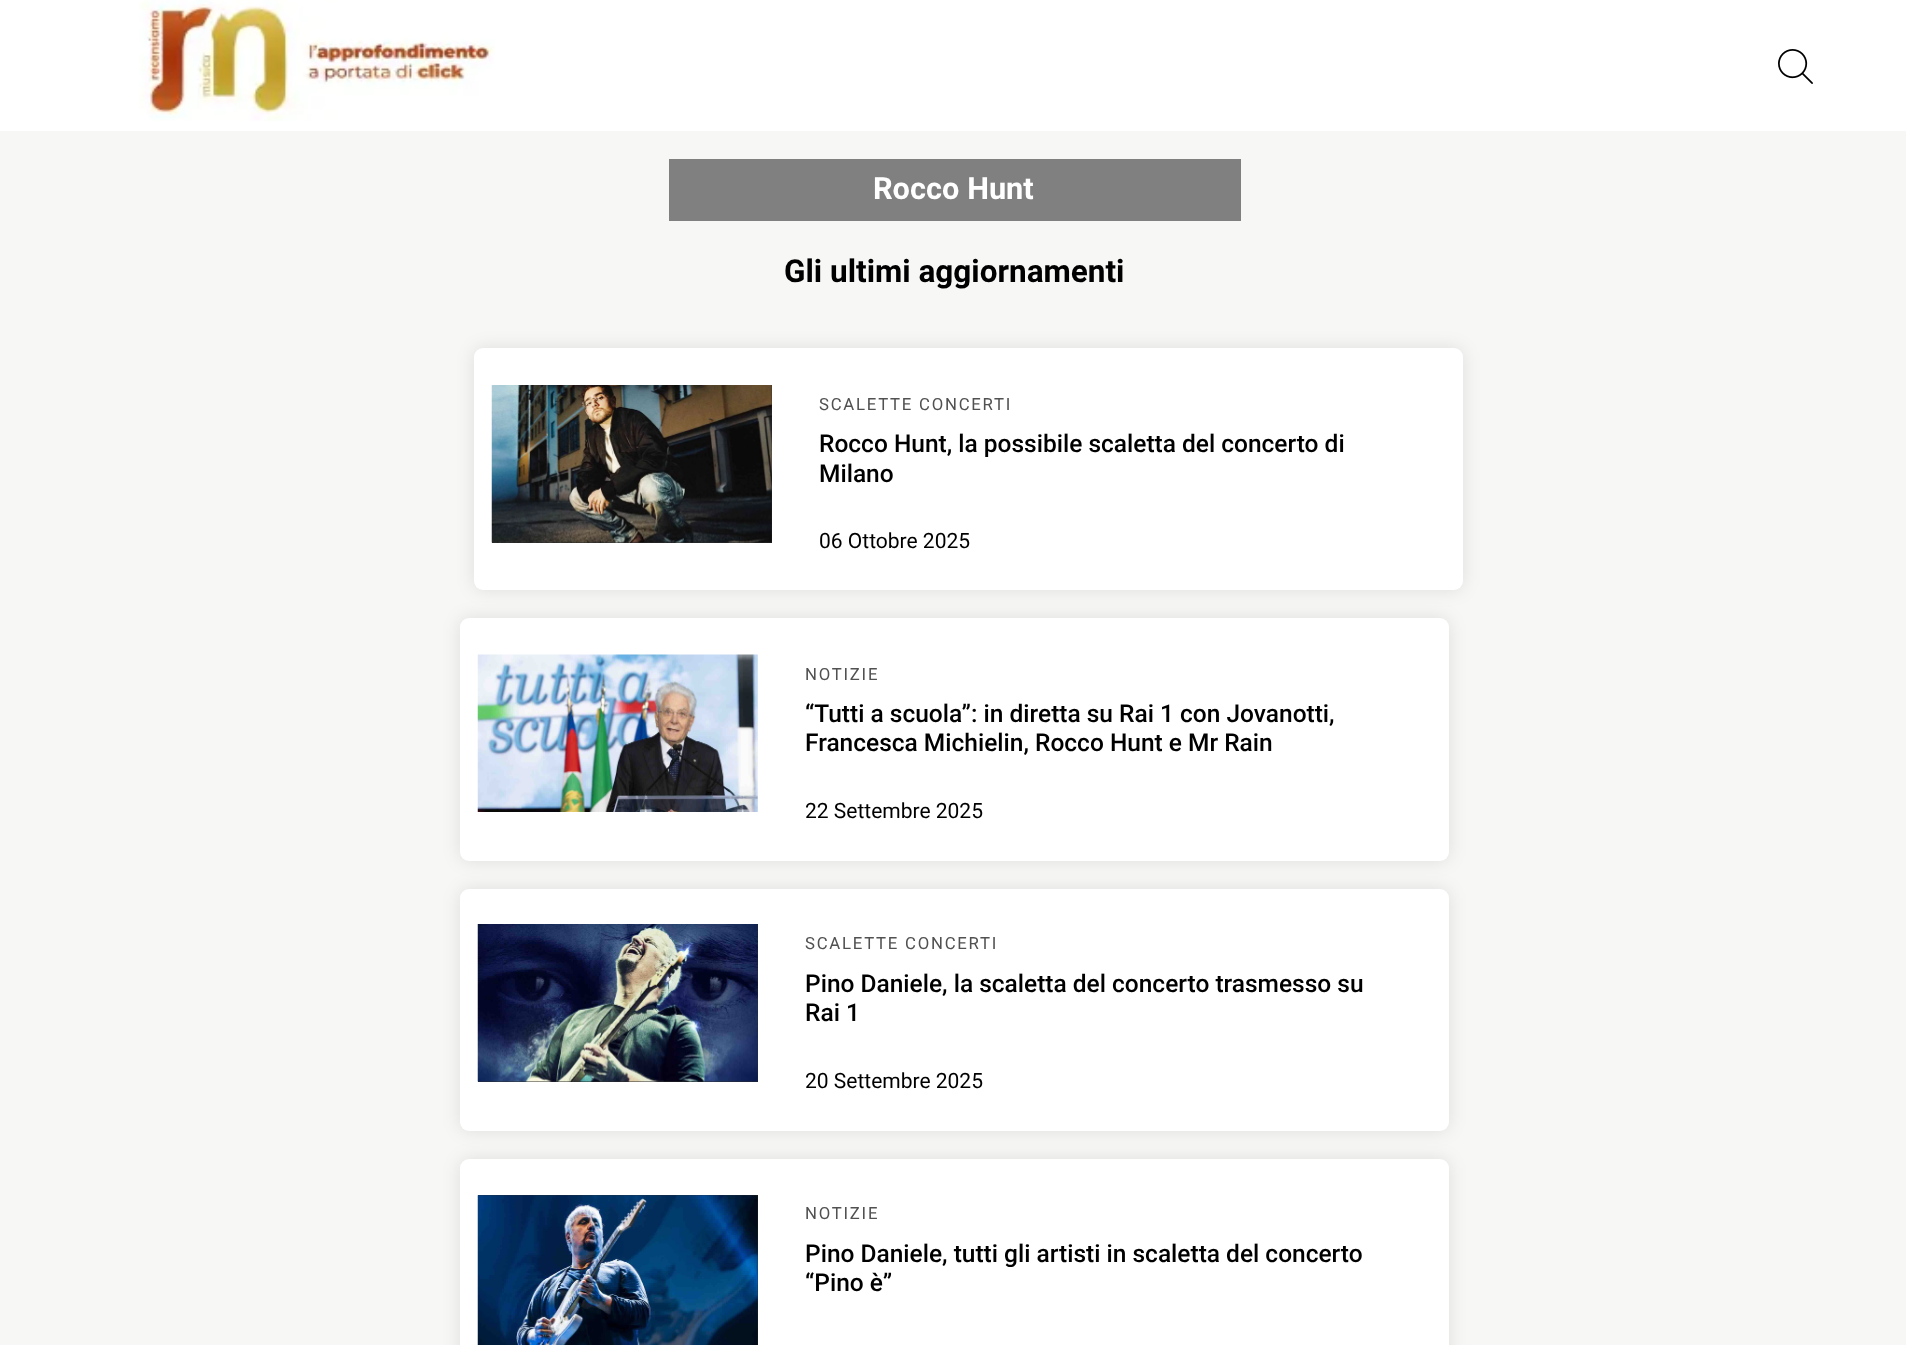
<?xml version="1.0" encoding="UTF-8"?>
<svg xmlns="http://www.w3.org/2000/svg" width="1906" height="1345">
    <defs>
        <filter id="blur1" x="-50%" y="-200%" width="200%" height="500%"><feGaussianBlur stdDeviation="9"/></filter>
    </defs>
    <rect width="100%" height="100%" fill="#F7F7F6"/>
    <rect x="0" y="0" width="1906" height="131" fill="#FFFFFF"/>
    <image x="139" y="0" width="356" height="121" href="img_01.png"/>
    <image x="1778" y="49" width="35" height="35" href="img_02.png"/>
    <rect x="669" y="159" width="572" height="62" fill="#808080"/>
    <text x="873" y="199" font-family="Roboto" font-size="30.75" font-weight="700" fill="#FFFFFF">Rocco Hunt</text>
    <text x="784" y="282" font-family="Roboto" font-size="31.5" font-weight="700" fill="#000000">Gli ultimi aggiornamenti</text>
    <rect x="474" y="348" width="989" height="242" rx="9" fill="#000000" fill-opacity="0.1" filter="url(#blur1)"/>
    <rect x="474" y="348" width="989" height="242" rx="9" fill="#FFFFFF"/>
    <rect x="492" y="385" width="280" height="158" fill="#2C2C2C"/>
    <image x="491" y="385" width="281" height="158" href="img_03.png"/>
    <text x="819" y="410" font-family="Roboto" font-size="16.75" letter-spacing="1.75" fill="#515151">SCALETTE CONCERTI</text>
    <text font-family="Roboto" font-size="24.5" font-weight="500" fill="#000000">
        <tspan x="819" y="452">Rocco Hunt, la possibile scaletta del concerto di</tspan>
        <tspan x="819" y="482">Milano</tspan>
    </text>
    <text x="819" y="548" font-family="Roboto" font-size="21" fill="#000000">06 Ottobre 2025</text>
    <rect x="460" y="618" width="989" height="243" rx="9" fill="#000000" fill-opacity="0.1" filter="url(#blur1)"/>
    <rect x="460" y="618" width="989" height="243" rx="9" fill="#FFFFFF"/>
    <image x="477" y="654" width="281" height="158" href="img_04.png"/>
    <text x="805" y="680" font-family="Roboto" font-size="16.75" letter-spacing="1.75" fill="#515151">NOTIZIE</text>
    <text font-family="Roboto" font-size="24.5" font-weight="500" fill="#000000">
        <tspan x="805" y="722">“Tutti a scuola”: in diretta su Rai 1 con Jovanotti,</tspan>
        <tspan x="805" y="751">Francesca Michielin, Rocco Hunt e Mr Rain</tspan>
    </text>
    <text x="805" y="818" font-family="Roboto" font-size="21" fill="#000000">22 Settembre 2025</text>
    <rect x="460" y="889" width="989" height="242" rx="9" fill="#000000" fill-opacity="0.1" filter="url(#blur1)"/>
    <rect x="460" y="889" width="989" height="242" rx="9" fill="#FFFFFF"/>
    <rect x="478" y="924" width="280" height="158" fill="#2C2C2C"/>
    <image x="477" y="924" width="281" height="158" href="img_05.png"/>
    <text x="805" y="949" font-family="Roboto" font-size="16.75" letter-spacing="1.75" fill="#515151">SCALETTE CONCERTI</text>
    <text font-family="Roboto" font-size="24.5" font-weight="500" fill="#000000">
        <tspan x="805" y="992">Pino Daniele, la scaletta del concerto trasmesso su</tspan>
        <tspan x="805" y="1021">Rai 1</tspan>
    </text>
    <text x="805" y="1088" font-family="Roboto" font-size="21" fill="#000000">20 Settembre 2025</text>
    <rect x="460" y="1159" width="989" height="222" rx="9" fill="#000000" fill-opacity="0.1" filter="url(#blur1)"/>
    <rect x="460" y="1159" width="989" height="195" rx="9" fill="#FFFFFF"/>
    <rect x="478" y="1195" width="280" height="150" fill="#2C2C2C"/>
    <image x="477" y="1195" width="281" height="150" href="img_06.png"/>
    <text x="805" y="1219" font-family="Roboto" font-size="16.75" letter-spacing="1.75" fill="#515151">NOTIZIE</text>
    <text font-family="Roboto" font-size="24.5" font-weight="500" fill="#000000">
        <tspan x="805" y="1262">Pino Daniele, tutti gli artisti in scaletta del concerto</tspan>
        <tspan x="805" y="1291">“Pino è”</tspan>
    </text>
</svg>
